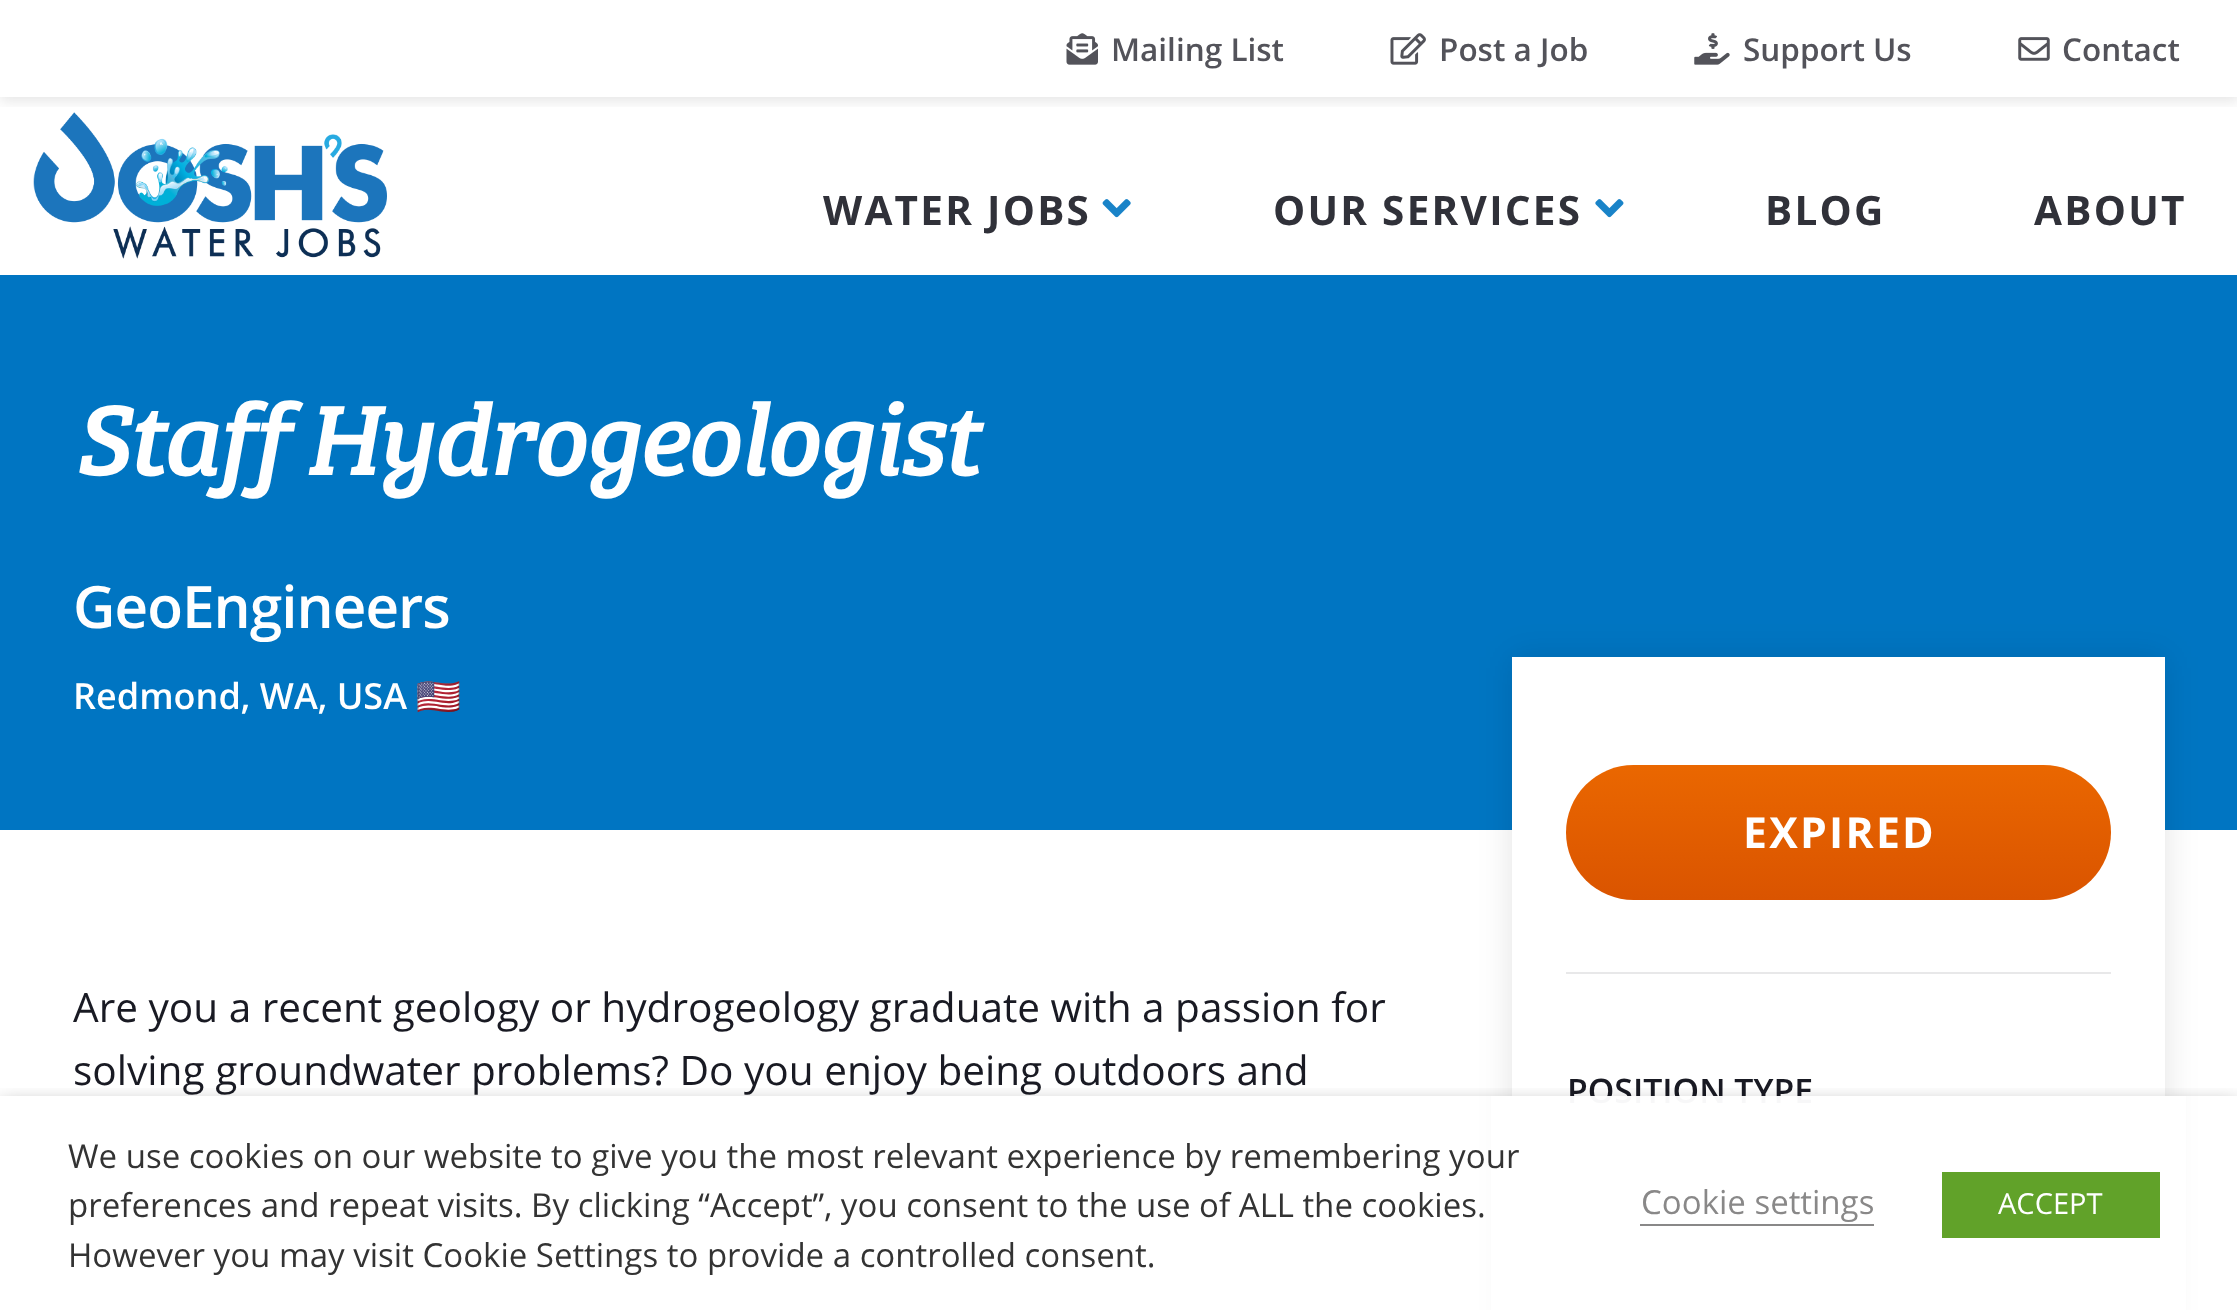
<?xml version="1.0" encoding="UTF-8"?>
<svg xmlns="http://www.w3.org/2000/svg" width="2237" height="1310">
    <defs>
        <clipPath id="clip1"><rect x="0" y="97" width="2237" height="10"/></clipPath>
        <filter id="blur1" x="-50%" y="-200%" width="200%" height="500%"><feGaussianBlur stdDeviation="7"/></filter>
        <filter id="blur2" x="-50%" y="-200%" width="200%" height="500%"><feGaussianBlur stdDeviation="17"/></filter>
        <linearGradient id="g1" gradientUnits="userSpaceOnUse" x1="1838" y1="765" x2="1838" y2="900"><stop offset="0" stop-color="#EA6700"/><stop offset="1" stop-color="#DA5400"/></linearGradient>
        <clipPath id="clip2"><rect x="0" y="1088" width="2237" height="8"/></clipPath>
        <filter id="blur3" x="-50%" y="-200%" width="200%" height="500%"><feGaussianBlur stdDeviation="11"/></filter>
    </defs>
    <rect width="100%" height="100%" fill="#FFFFFF"/>
    <g clip-path="url(#clip1)">
        <rect x="0" y="5" width="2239" height="96" fill="#000000" fill-opacity="0.1" filter="url(#blur1)"/>
    </g>
    <image x="1066" y="33" width="32" height="32" href="img_01.png"/>
    <text x="1111" y="61" font-family="Open Sans" font-size="31.5" font-weight="600" fill="#53535A">Mailing List</text>
    <image x="1390" y="33" width="36" height="32" href="img_02.png"/>
    <text x="1439" y="61" font-family="Open Sans" font-size="31.5" font-weight="600" fill="#53535A">Post a Job</text>
    <image x="1694" y="33" width="36" height="32" href="img_03.png"/>
    <text x="1743" y="61" font-family="Open Sans" font-size="31.5" font-weight="600" fill="#53535A">Support Us</text>
    <image x="2018" y="37" width="32" height="24" href="img_04.png"/>
    <text x="2062" y="61" font-family="Open Sans" font-size="31.5" font-weight="600" fill="#53535A">Contact</text>
    <image x="33" y="112" width="354" height="147" href="img_05.png"/>
    <text x="823" y="225" font-family="Open Sans" font-size="40.5" font-weight="700" letter-spacing="2.25" fill="#303139">WATER JOBS</text>
    <image x="1102" y="199" width="29" height="19" href="img_06.png"/>
    <text x="1273" y="225" font-family="Open Sans" font-size="40.5" font-weight="700" letter-spacing="2.25" fill="#303139">OUR SERVICES</text>
    <image x="1595" y="199" width="29" height="19" href="img_07.png"/>
    <text x="1765" y="225" font-family="Open Sans" font-size="40.5" font-weight="700" letter-spacing="2.25" fill="#303139">BLOG</text>
    <text x="2034" y="225" font-family="Open Sans" font-size="40.5" font-weight="700" letter-spacing="2.25" fill="#303139">ABOUT</text>
    <rect x="0" y="275" width="2237" height="555" fill="#0075C2"/>
    <text x="73" y="475" font-family="Bree Serif" font-size="103.5" font-style="italic" letter-spacing="-2.6" fill="#FFFFFF">Staff Hydrogeologist</text>
    <text x="73" y="628" font-family="Open Sans" font-size="58.5" font-weight="600" letter-spacing="-1" fill="#FFFFFF">GeoEngineers</text>
    <text x="73" y="709" font-family="Open Sans" font-size="36" font-weight="600" fill="#FFFFFF">Redmond, WA, USA</text>
    <text x="416" y="709" font-family="Noto Color Emoji" font-size="36" font-weight="700" fill="#FFFFFF">🇺🇸</text>
    <text font-family="Open Sans" font-size="40.5" fill="#191A23">
        <tspan x="73" y="1022">Are you a recent geology or hydrogeology graduate with a passion for</tspan>
        <tspan x="73" y="1085">solving groundwater problems? Do you enjoy being outdoors and</tspan>
    </text>
    <rect x="1512" y="657" width="653" height="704" fill="#191A23" fill-opacity="0.11" filter="url(#blur2)"/>
    <rect x="1512" y="657" width="653" height="653" fill="#FFFFFF"/>
    <rect x="1566" y="765" width="545" height="135" rx="67.5" fill="url(#g1)"/>
    <text x="1743" y="848" font-family="Open Sans" font-size="42.75" font-weight="700" letter-spacing="2.25" fill="#FFFFFF">EXPIRED</text>
    <rect x="1566" y="972" width="545" height="2" fill="#E8E8E9"/>
    <text x="1567" y="1103" font-family="Open Sans" font-size="33.75" font-weight="600" fill="#191A23">POSITION TYPE</text>
    <g clip-path="url(#clip2)">
        <rect x="0" y="1107" width="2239" height="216" fill="#000000" fill-opacity="0.5" filter="url(#blur3)"/>
    </g>
    <rect x="1491" y="1096" width="695" height="214" fill="#FFFFFF" fill-opacity="0.97"/>
    <text font-family="Open Sans" font-size="33" fill="#333333">
        <tspan x="68" y="1168">We use cookies on our website to give you the most relevant experience by remembering your</tspan>
        <tspan x="68" y="1217">preferences and repeat visits. By clicking “Accept”, you consent to the use of ALL the cookies.</tspan>
        <tspan x="68" y="1267">However you may visit Cookie Settings to provide a controlled consent.</tspan>
    </text>
    <text x="1641" y="1214" font-family="Open Sans" font-size="33" fill="#898888">Cookie settings</text>
    <rect x="1640" y="1224" width="234" height="2" fill="#898888"/>
    <rect x="1942" y="1172" width="218" height="66" fill="#61A229"/>
    <text x="1998" y="1214" font-family="Open Sans" font-size="29" fill="#FFFFFF">ACCEPT</text>
</svg>
